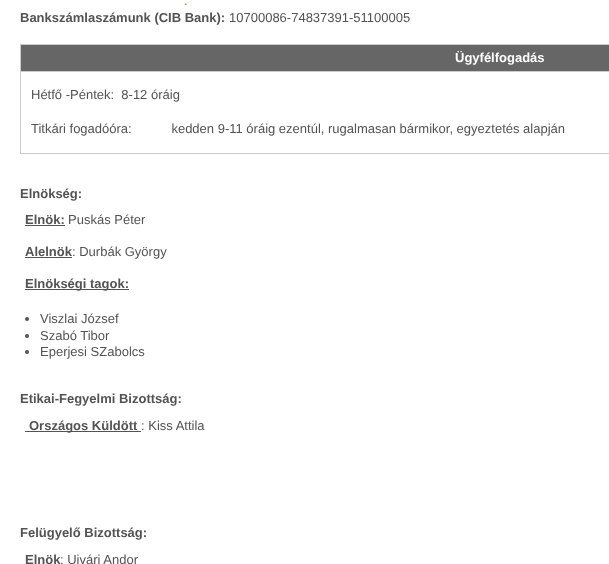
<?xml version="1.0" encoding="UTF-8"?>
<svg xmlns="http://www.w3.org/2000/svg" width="609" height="564">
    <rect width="100%" height="100%" fill="#FFFFFF"/>
    <text x="184" y="5" font-family="Liberation Sans" font-size="13" fill="#669900">.</text>
    <text x="20" y="22" font-family="Liberation Sans" font-size="13" font-weight="700" fill="#535353">Bankszámlaszámunk (CIB Bank):</text>
    <text x="229" y="22" font-family="Liberation Sans" font-size="13" fill="#535353">10700086-74837391-51100005</text>
    <rect x="20" y="44" width="589" height="1" fill="#CCCCCC"/>
    <rect x="20" y="153" width="589" height="1" fill="#CCCCCC"/>
    <rect x="20" y="44" width="1" height="110" fill="#CCCCCC"/>
    <rect x="21" y="45" width="588" height="26" fill="#666666"/>
    <rect x="20" y="71" width="589" height="1" fill="#CCCCCC"/>
    <text x="455" y="62" font-family="Liberation Sans" font-size="13" font-weight="700" fill="#FFFFFF">Ügyfélfogadás</text>
    <text x="31" y="99" font-family="Liberation Sans" font-size="13" fill="#535353" xml:space="preserve">Hétfő -Péntek:  8-12 óráig</text>
    <text x="31" y="133" font-family="Liberation Sans" font-size="13" fill="#535353" xml:space="preserve">Titkári fogadóóra:           kedden 9-11 óráig ezentúl, rugalmasan bármikor, egyeztetés alapján</text>
    <text x="20" y="198" font-family="Liberation Sans" font-size="13" font-weight="700" fill="#535353">Elnökség:</text>
    <text x="25" y="224" font-family="Liberation Sans" font-size="13" font-weight="700" fill="#535353">Elnök:</text>
    <rect x="25" y="225" width="40" height="1" fill="#535353"/>
    <text x="68" y="224" font-family="Liberation Sans" font-size="13" fill="#535353">Puskás Péter</text>
    <text x="25" y="256" font-family="Liberation Sans" font-size="13" font-weight="700" fill="#535353">Alelnök</text>
    <rect x="25" y="257" width="47" height="1" fill="#535353"/>
    <text x="72" y="256" font-family="Liberation Sans" font-size="13" fill="#535353">: Durbák György</text>
    <rect x="25" y="289" width="104" height="1" fill="#535353"/>
    <text x="25" y="288" font-family="Liberation Sans" font-size="13" font-weight="700" fill="#535353">Elnökségi tagok:</text>
    <circle cx="27" cy="319" r="2" fill="#535353"/>
    <text x="40" y="323" font-family="Liberation Sans" font-size="13" fill="#535353">Viszlai József</text>
    <circle cx="27" cy="336" r="2" fill="#535353"/>
    <text x="40" y="340" font-family="Liberation Sans" font-size="13" fill="#535353">Szabó Tibor</text>
    <circle cx="27" cy="352" r="2" fill="#535353"/>
    <text x="40" y="356" font-family="Liberation Sans" font-size="13" fill="#535353">Eperjesi SZabolcs</text>
    <text x="20" y="403" font-family="Liberation Sans" font-size="13" font-weight="700" fill="#535353">Etikai-Fegyelmi Bizottság:</text>
    <rect x="25" y="431" width="116" height="1" fill="#535353"/>
    <text x="29" y="430" font-family="Liberation Sans" font-size="13" font-weight="700" fill="#535353">Országos Küldött</text>
    <text x="141" y="430" font-family="Liberation Sans" font-size="13" fill="#535353">: Kiss Attila</text>
    <text x="20" y="537" font-family="Liberation Sans" font-size="13" font-weight="700" fill="#535353">Felügyelő Bizottság:</text>
    <text x="25" y="564" font-family="Liberation Sans" font-size="13" font-weight="700" fill="#535353">Elnök</text>
    <text x="60" y="564" font-family="Liberation Sans" font-size="13" fill="#535353">: Ujvári Andor</text>
</svg>
